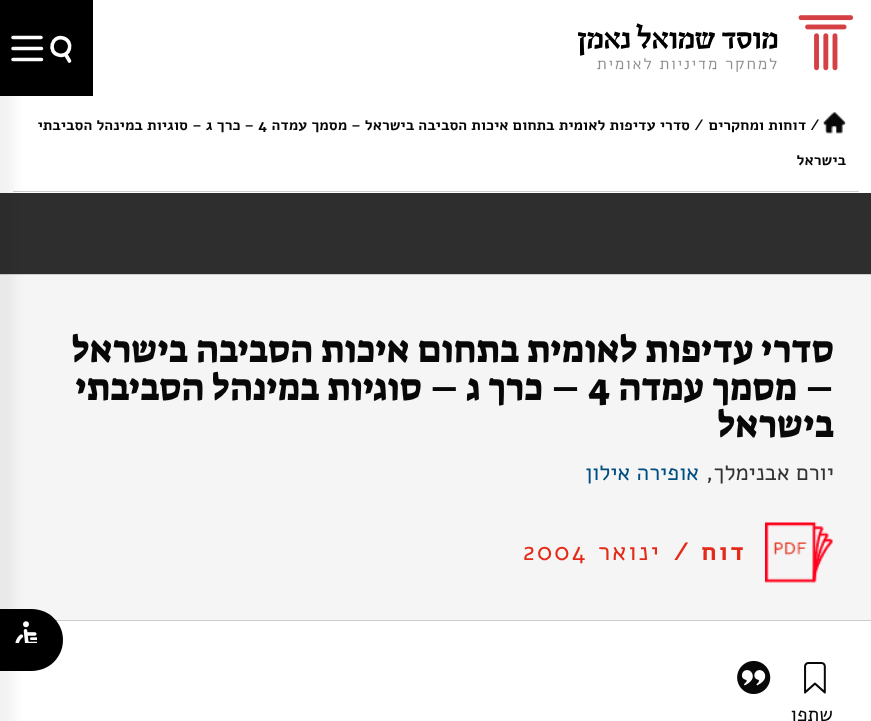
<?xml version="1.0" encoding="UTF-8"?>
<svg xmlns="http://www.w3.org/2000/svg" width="871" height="721">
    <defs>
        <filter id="blur1" x="-50%" y="-200%" width="200%" height="500%"><feGaussianBlur stdDeviation="6"/></filter>
    </defs>
    <rect width="100%" height="100%" fill="#FFFFFF"/>
    <image x="798" y="15" width="56" height="56" href="img_01.png"/>
    <image x="578" y="23" width="200" height="50" href="img_02.png"/>
    <rect x="0" y="0" width="93" height="96" fill="#000000"/>
    <path d="M 63 38 C 74.5 41 70 58 58.5 55 C 47.5 52.5 51.5 35 63 38 Z" fill="none" stroke="#FFFFFF" stroke-width="3.6"/>
    <path d="M 69.5 61 L 66 55 M 41 37.5 H 13 M 41.5 48.5 H 13 M 41.5 59.5 H 13" fill="none" stroke="#FFFFFF" stroke-width="3.6" stroke-linecap="round"/>
    <rect x="13" y="191" width="846" height="1" fill="#CCCCCC"/>
    <image x="823" y="112" width="23" height="22" href="img_03.png"/>
    <text x="810" y="130" font-family="Alef" font-size="15" font-weight="700" fill="#080808">/</text>
    <text x="806" y="130" font-family="Alef" font-size="15" font-weight="700" direction="rtl" fill="#080808">דוחות ומחקרים</text>
    <text x="694" y="130" font-family="Alef" font-size="15" font-weight="700" fill="#080808">/</text>
    <text x="690" y="130" font-family="Alef" font-size="15" font-weight="700" direction="rtl" fill="#080808">סדרי עדיפות לאומית בתחום איכות הסביבה בישראל – מסמך עמדה</text>
    <text x="258" y="130" font-family="Alef" font-size="15" font-weight="700" fill="#080808">4</text>
    <text x="254" y="130" font-family="Alef" font-size="15" font-weight="700" direction="rtl" fill="#080808">– כרך ג – סוגיות במינהל הסביבתי</text>
    <text x="846" y="165" font-family="Alef" font-size="15" font-weight="700" direction="rtl" fill="#080808">בישראל</text>
    <rect x="0" y="193" width="871" height="81" fill="#2E2E2E"/>
    <rect x="0" y="274" width="871" height="1" fill="#CCCCCC"/>
    <rect x="0" y="275" width="871" height="345" fill="#F5F5F5"/>
    <rect x="55" y="620" width="816" height="1" fill="#CCCCCC"/>
    <path d="M 0 609 H 32 C 49 609 63 623 63 640 C 63 657 49 671 32 671 H 0 Z" fill="#000000"/>
    <image x="15" y="621" width="22" height="22" href="img_07.png"/>
    <rect x="-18" y="-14" width="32" height="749" fill="#000000" fill-opacity="0.05" filter="url(#blur1)"/>
    <text font-family="Suez One" font-size="37.5" direction="rtl" fill="#080808">
        <tspan x="834" y="362">סדרי עדיפות לאומית בתחום איכות הסביבה בישראל</tspan>
        <tspan x="834" y="400">– מסמך עמדה</tspan>
    </text>
    <text x="588" y="400" font-family="Suez One" font-size="37.5" fill="#080808">4</text>
    <text x="580" y="400" font-family="Suez One" font-size="37.5" direction="rtl" fill="#080808">– כרך ג – סוגיות במינהל הסביבתי</text>
    <text x="834" y="437" font-family="Suez One" font-size="37.5" direction="rtl" fill="#080808">בישראל</text>
    <text x="834" y="480" font-family="Alef" font-size="22.5" direction="rtl" fill="#333333">יורם אבנימלך,</text>
    <text x="699" y="480" font-family="Alef" font-size="22.5" direction="rtl" fill="#004F80">אופירה אילון</text>
    <image x="765" y="522" width="68" height="61" href="img_04.png"/>
    <text x="746" y="560" font-family="Alef" font-size="25" font-weight="700" letter-spacing="2.25" direction="rtl" fill="#E42B19">דוח /</text>
    <text x="661" y="560" font-family="Alef" font-size="25" letter-spacing="2.25" direction="rtl" fill="#E42B19">ינואר</text>
    <text x="523" y="560" font-family="Alef" font-size="25" letter-spacing="2.25" fill="#E42B19">2004</text>
    <image x="737" y="661" width="34" height="33" href="img_05.png"/>
    <image x="804" y="662" width="22" height="32" href="img_06.png"/>
    <text x="833" y="721" font-family="Alef" font-size="20" direction="rtl" fill="#080808">שתפו</text>
</svg>
